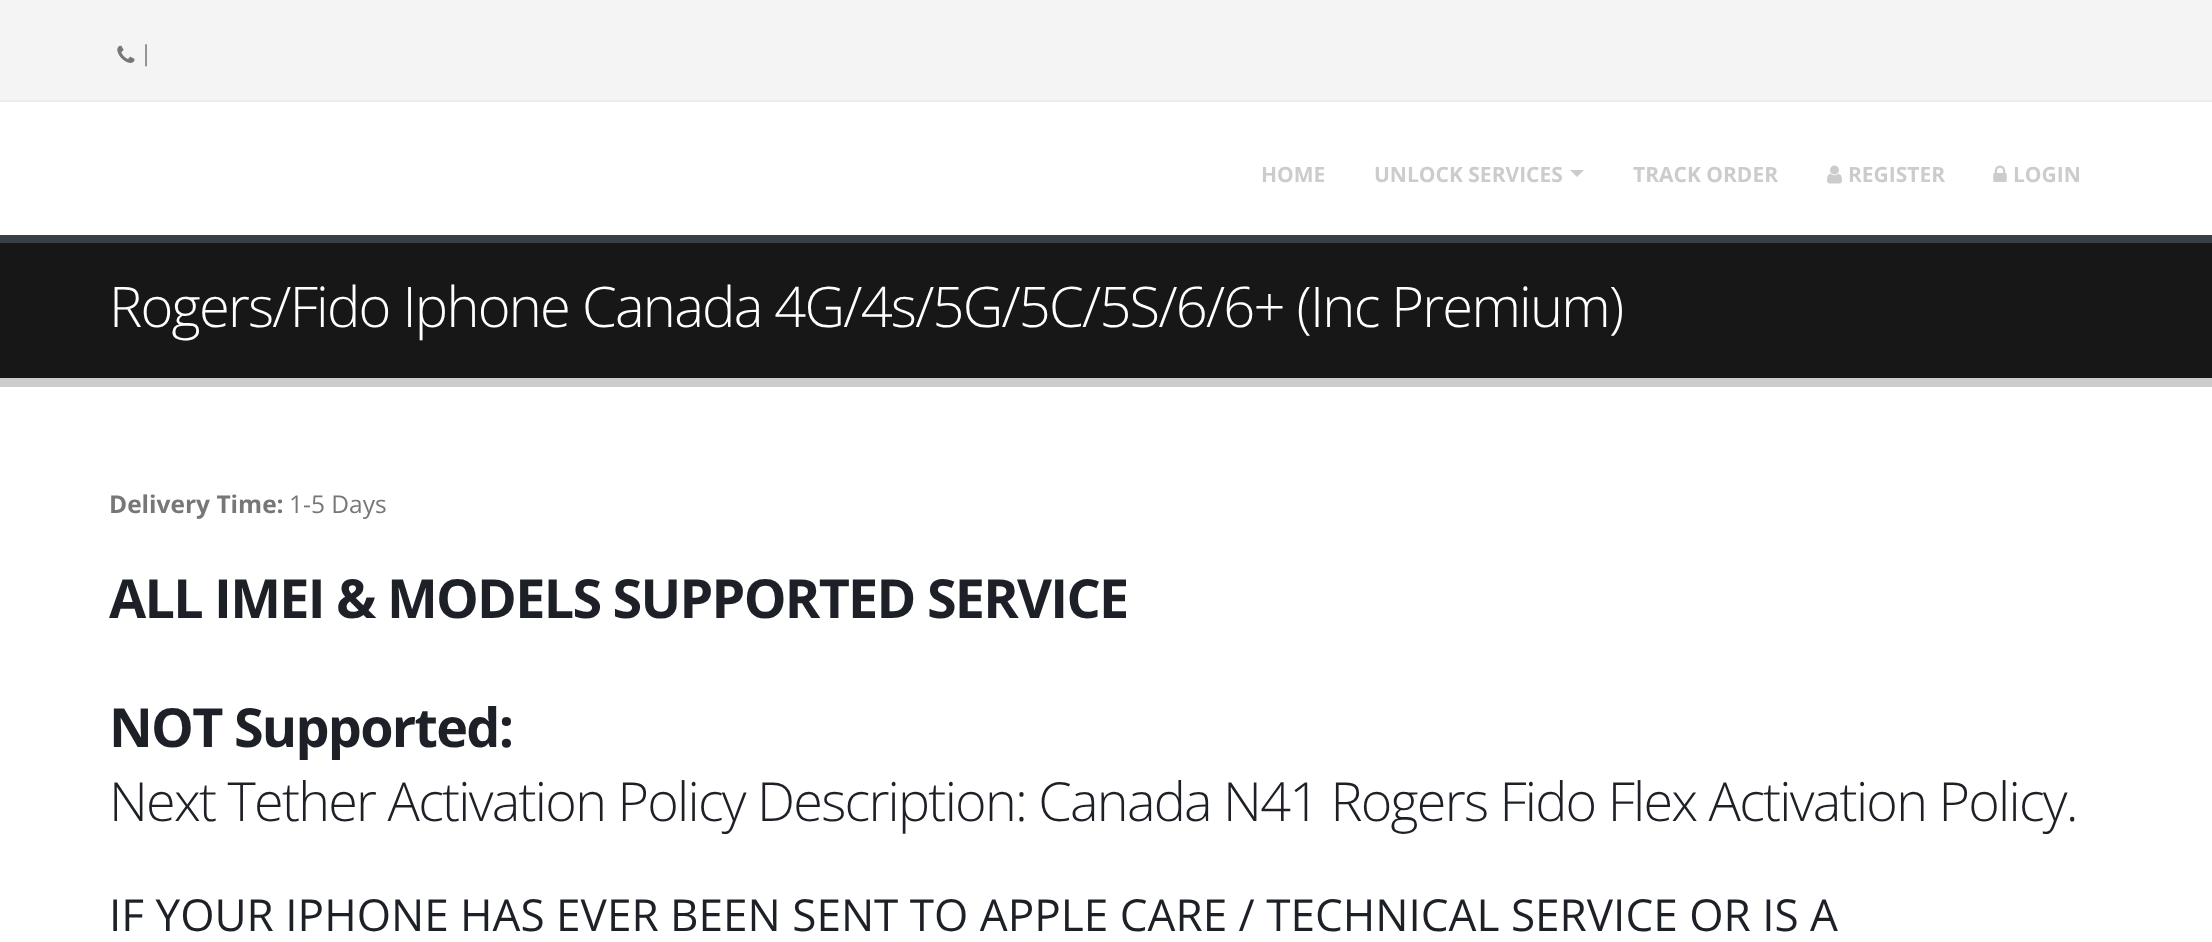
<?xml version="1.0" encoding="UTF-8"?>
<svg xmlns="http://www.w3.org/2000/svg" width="2212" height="942">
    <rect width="100%" height="100%" fill="#FFFFFF"/>
    <rect x="0" y="0" width="2212" height="100" fill="#F4F4F4"/>
    <rect x="0" y="100" width="2212" height="2" fill="#EDEDED"/>
    <image x="117" y="45" width="18" height="18" href="img_01.png"/>
    <text x="140" y="61" font-family="Open Sans" font-size="22" fill="#777777">|</text>
    <text x="1261" y="182" font-family="Open Sans" font-size="21" font-weight="700" fill="#CCCCCC">HOME</text>
    <text x="1374" y="182" font-family="Open Sans" font-size="21" font-weight="700" fill="#CCCCCC">UNLOCK SERVICES</text>
    <path d="M 1570 170 H 1584 L 1577 177 Z" fill="#CCCCCC"/>
    <text x="1633" y="182" font-family="Open Sans" font-size="21" font-weight="700" fill="#CCCCCC">TRACK ORDER</text>
    <image x="1827" y="165" width="15" height="19" href="img_02.png"/>
    <text x="1848" y="182" font-family="Open Sans" font-size="21" font-weight="700" fill="#CCCCCC">REGISTER</text>
    <image x="1993" y="165" width="14" height="17" href="img_03.png"/>
    <text x="2013" y="182" font-family="Open Sans" font-size="21" font-weight="700" fill="#CCCCCC">LOGIN</text>
    <rect x="0" y="243" width="2212" height="135" fill="#171717"/>
    <rect x="0" y="235" width="2212" height="8" fill="#384045"/>
    <rect x="0" y="378" width="2212" height="9" fill="#CCCCCC"/>
    <text x="109" y="327" font-family="Open Sans" font-size="56" font-weight="300" letter-spacing="-1.75" fill="#FFFFFF">Rogers/Fido Iphone Canada 4G/4s/5G/5C/5S/6/6+ (Inc Premium)</text>
    <text x="109" y="513" font-family="Open Sans" font-size="24.5" font-weight="700" fill="#777777">Delivery Time:</text>
    <text x="289" y="513" font-family="Open Sans" font-size="24.5" fill="#777777">1-5 Days</text>
    <text x="109" y="618" font-family="Open Sans" font-size="53.9" font-weight="700" letter-spacing="-1.75" fill="#1D2127">ALL IMEI &amp; MODELS SUPPORTED SERVICE</text>
    <text x="109" y="747" font-family="Open Sans" font-size="53.9" font-weight="700" letter-spacing="-1.75" fill="#1D2127">NOT Supported:</text>
    <text x="109" y="821" font-family="Open Sans" font-size="53.9" font-weight="300" letter-spacing="-1.75" fill="#1D2127">Next Tether Activation Policy Description: Canada N41 Rogers Fido Flex Activation Policy.</text>
    <text x="109" y="931" font-family="Open Sans" font-size="44.1" fill="#1D2127">IF YOUR IPHONE HAS EVER BEEN SENT TO APPLE CARE / TECHNICAL SERVICE OR IS A</text>
</svg>
